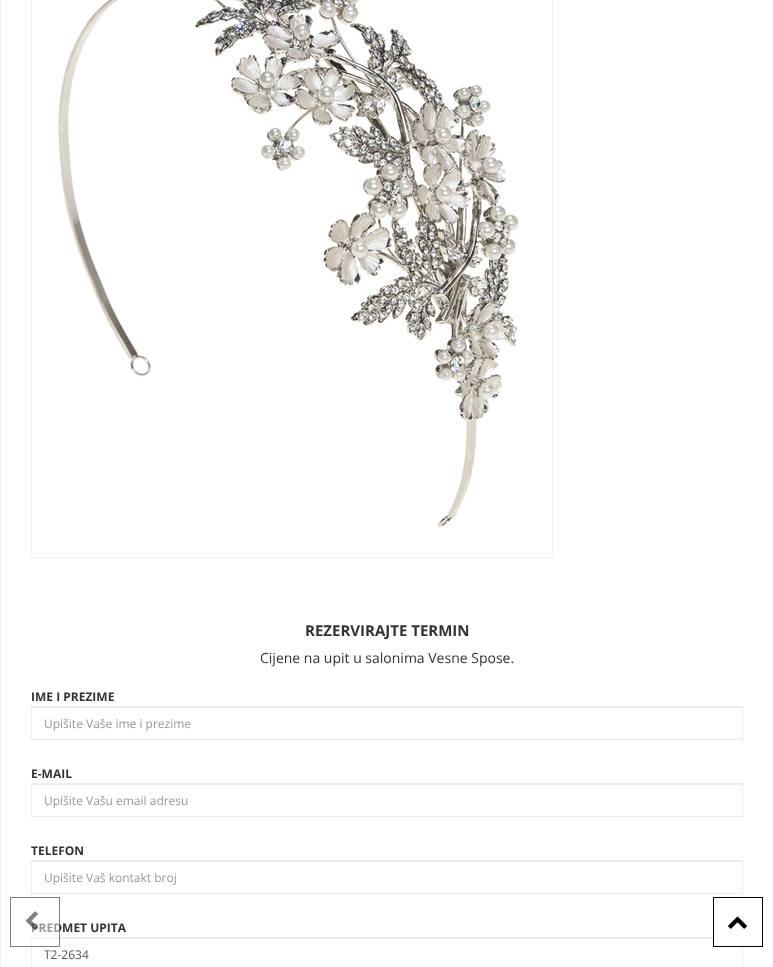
<?xml version="1.0" encoding="UTF-8"?>
<svg xmlns="http://www.w3.org/2000/svg" width="773" height="967">
    <rect width="100%" height="100%" fill="#FFFFFF"/>
    <rect x="0" y="0" width="1" height="967" fill="#EDEDED"/>
    <rect x="31.5" y="-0.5" width="521" height="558" fill="none" stroke="#F1F1F1"/>
    <image x="56" y="0" width="464" height="529" href="img_01.png"/>
    <text x="305" y="636" font-family="Open Sans" font-size="15" font-weight="700" fill="#333333">REZERVIRAJTE TERMIN</text>
    <text x="260" y="663" font-family="Open Sans" font-size="14" fill="#333333">Cijene na upit u salonima Vesne Spose.</text>
    <text x="31" y="701" font-family="Open Sans" font-size="12" font-weight="700" fill="#333333">IME I PREZIME</text>
    <rect x="32" y="707" width="710" height="1" fill="#ECECEC"/>
    <rect x="31.5" y="706.5" width="711" height="33" fill="none" stroke="#EDEDED"/>
    <text x="44" y="728" font-family="Open Sans" font-size="12" fill="#999999">Upišite Vaše ime i prezime</text>
    <text x="31" y="778" font-family="Open Sans" font-size="12" font-weight="700" fill="#333333">E-MAIL</text>
    <rect x="32" y="784" width="710" height="1" fill="#ECECEC"/>
    <rect x="31.5" y="783.5" width="711" height="33" fill="none" stroke="#EDEDED"/>
    <text x="44" y="805" font-family="Open Sans" font-size="12" fill="#999999">Upišite Vašu email adresu</text>
    <text x="31" y="855" font-family="Open Sans" font-size="12" font-weight="700" fill="#333333">TELEFON</text>
    <rect x="32" y="861" width="710" height="1" fill="#ECECEC"/>
    <rect x="31.5" y="860.5" width="711" height="33" fill="none" stroke="#EDEDED"/>
    <text x="44" y="882" font-family="Open Sans" font-size="12" fill="#999999">Upišite Vaš kontakt broj</text>
    <text x="31" y="932" font-family="Open Sans" font-size="12" font-weight="700" fill="#333333">PREDMET UPITA</text>
    <rect x="32" y="938" width="681" height="1" fill="#ECECEC"/>
    <rect x="31.5" y="937.5" width="711" height="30" fill="none" stroke="#EDEDED"/>
    <text x="44" y="959" font-family="Open Sans" font-size="12" fill="#555555">T2-2634</text>
    <rect x="31" y="923" width="29" height="24" fill="#FFFFFF" fill-opacity="0.5"/>
    <rect x="10.5" y="897.5" width="49" height="49" fill="none" stroke="#000000" stroke-opacity="0.5"/>
    <image x="25" y="911" width="13" height="20" href="img_02.png"/>
    <rect x="714" y="937" width="29" height="9" fill="#FFFFFF"/>
    <rect x="713.5" y="897.5" width="49" height="49" fill="none" stroke="#000000"/>
    <image x="728" y="916" width="19" height="13" href="img_03.png"/>
</svg>
